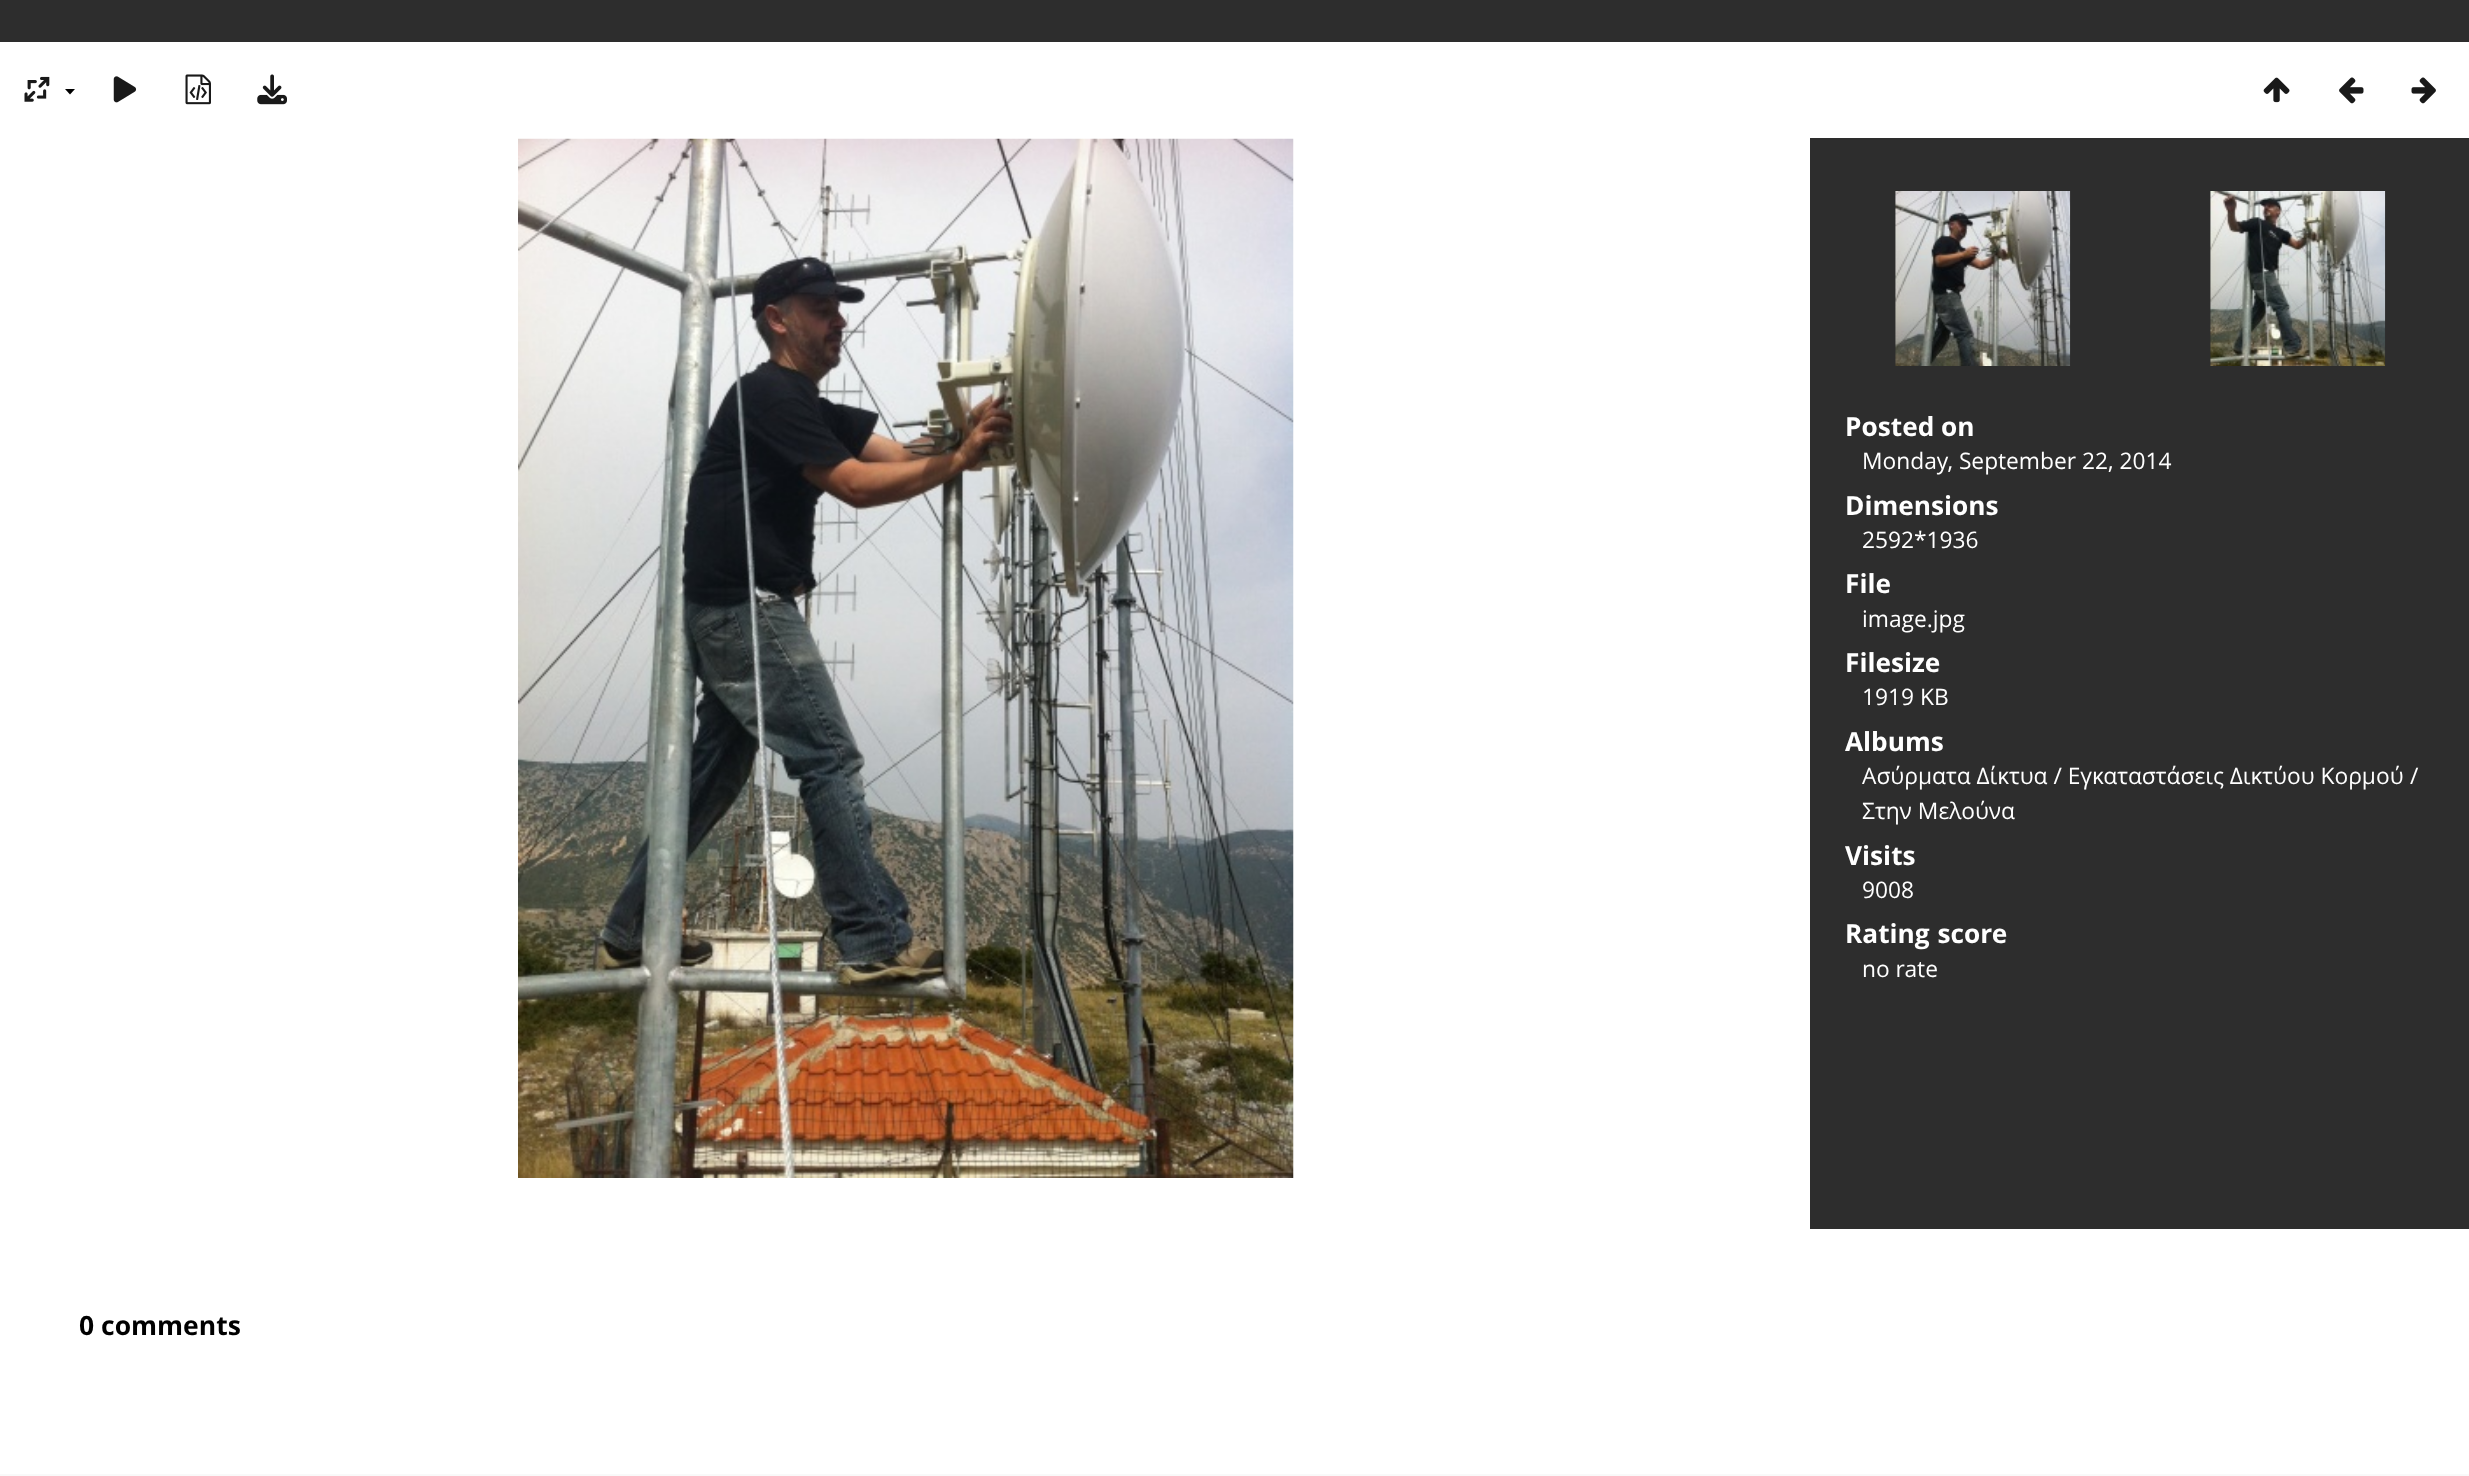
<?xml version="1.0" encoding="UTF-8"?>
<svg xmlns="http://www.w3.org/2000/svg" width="2469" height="1476">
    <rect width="100%" height="100%" fill="#FFFFFF"/>
    <rect x="0" y="0" width="2469" height="42" fill="#2D2D2D"/>
    <image x="24" y="76" width="26" height="26" href="img_01.png"/>
    <path d="M 65 89 H 75 L 70 94.5 Z" fill="#000000"/>
    <image x="113" y="76" width="24" height="27" href="img_02.png"/>
    <image x="185" y="74" width="26" height="31" href="img_03.png"/>
    <image x="257" y="74" width="30" height="31" href="img_04.png"/>
    <image x="2263" y="77" width="27" height="26" href="img_05.png"/>
    <image x="2339" y="77" width="25" height="27" href="img_06.png"/>
    <image x="2411" y="77" width="25" height="27" href="img_07.png"/>
    <image x="518" y="138" width="776" height="1040" href="img_08.png"/>
    <rect x="1810" y="138" width="659" height="1091" fill="#2D2D2D"/>
    <image x="1895" y="191" width="176" height="175" href="img_09.png"/>
    <image x="2210" y="191" width="176" height="175" href="img_10.png"/>
    <text x="1845" y="436" font-family="Open Sans" font-size="26.25" font-weight="700" fill="#FFFFFF">Posted on</text>
    <text x="1862" y="469" font-family="Open Sans" font-size="22.75" fill="#FFFFFF">Monday, September 22, 2014</text>
    <text x="1845" y="515" font-family="Open Sans" font-size="26.25" font-weight="700" fill="#FFFFFF">Dimensions</text>
    <text x="1862" y="548" font-family="Open Sans" font-size="22.75" fill="#FFFFFF">2592*1936</text>
    <text x="1845" y="593" font-family="Open Sans" font-size="26.25" font-weight="700" fill="#FFFFFF">File</text>
    <text x="1862" y="627" font-family="Open Sans" font-size="22.75" fill="#FFFFFF">image.jpg</text>
    <text x="1845" y="672" font-family="Open Sans" font-size="26.25" font-weight="700" fill="#FFFFFF">Filesize</text>
    <text x="1862" y="705" font-family="Open Sans" font-size="22.75" fill="#FFFFFF">1919 KB</text>
    <text x="1845" y="751" font-family="Open Sans" font-size="26.25" font-weight="700" fill="#FFFFFF">Albums</text>
    <text x="1862" y="784" font-family="Open Sans" font-size="22.75" fill="#FFFFFF">Ασύρματα Δίκτυα / Εγκαταστάσεις Δικτύου Κορμού</text>
    <text x="2410" y="784" font-family="Open Sans" font-size="22.75" fill="#FFFFFF">/</text>
    <text x="1862" y="819" font-family="Open Sans" font-size="22.75" fill="#FFFFFF">Στην Μελούνα</text>
    <text x="1845" y="865" font-family="Open Sans" font-size="26.25" font-weight="700" fill="#FFFFFF">Visits</text>
    <text x="1862" y="898" font-family="Open Sans" font-size="22.75" fill="#FFFFFF">9008</text>
    <text x="1845" y="943" word-spacing="1" font-family="Open Sans" font-size="26.25" font-weight="700" fill="#FFFFFF">Rating score</text>
    <text x="1862" y="977" font-family="Open Sans" font-size="22.75" fill="#FFFFFF">no rate</text>
    <text x="79" y="1335" font-family="Open Sans" font-size="26.5" font-weight="700" fill="#000000">0 comments</text>
    <rect x="0" y="1474" width="2469" height="2" fill="#F9F9F9"/>
</svg>
